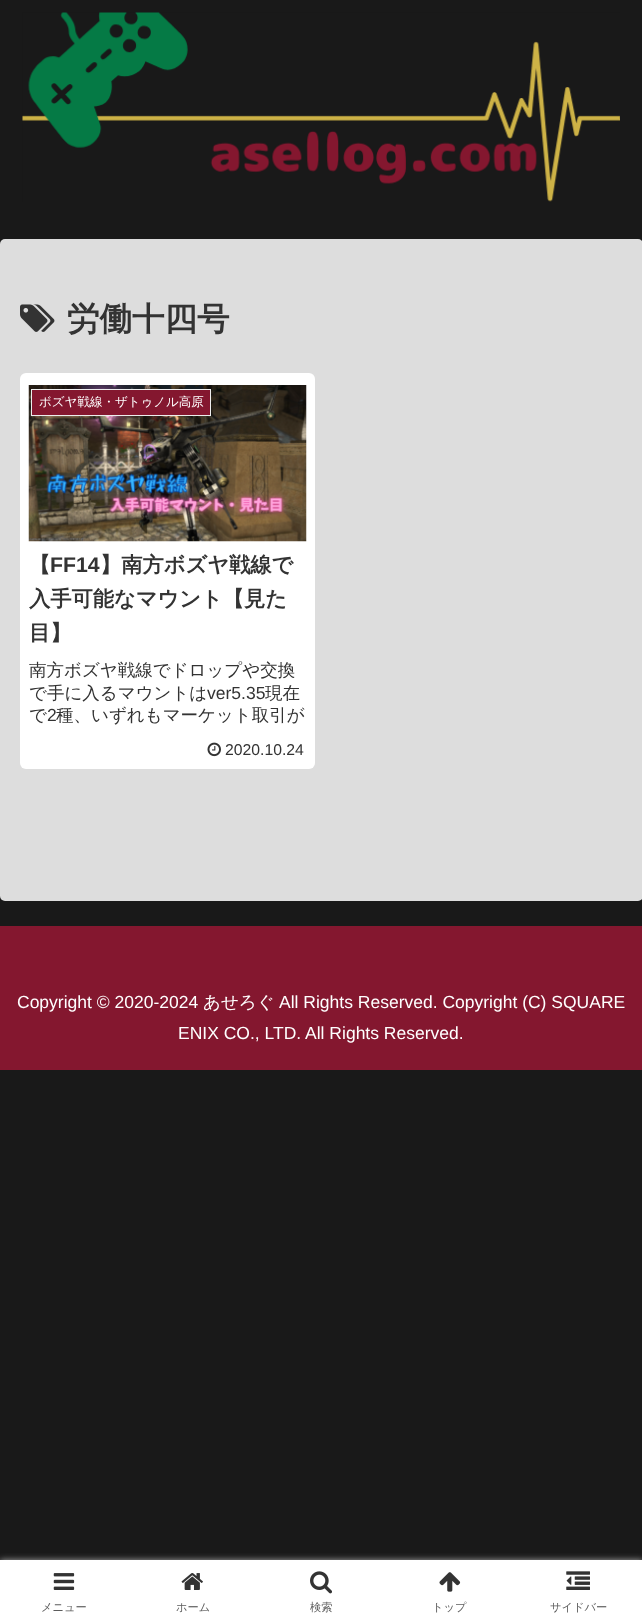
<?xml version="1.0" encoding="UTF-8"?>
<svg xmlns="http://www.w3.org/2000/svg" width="642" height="1622">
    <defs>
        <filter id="blur1" x="-50%" y="-200%" width="200%" height="500%"><feGaussianBlur stdDeviation="3"/></filter>
    </defs>
    <rect width="100%" height="100%" fill="#191919"/>
    <image x="22" y="12" width="598" height="190" href="img_01.png"/>
    <rect x="0" y="239" width="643" height="662" rx="5" fill="#DDDDDD"/>
    <image x="20" y="304" width="35" height="28" href="img_02.png"/>
    <text x="67" y="330" font-family="WenQuanYi Zen Hei" font-size="32.5" font-weight="700" fill="#333333">労働十四号</text>
    <rect x="20" y="373" width="295" height="396" rx="6" fill="#FFFFFF"/>
    <image x="28" y="385" width="279" height="157" href="img_03.png"/>
    <rect x="31.5" y="389.5" width="179" height="26" fill="#84172F" stroke="#EEEEEE"/>
    <text x="39" y="406" font-family="WenQuanYi Zen Hei" font-size="12.5" font-weight="500" fill="#FFFFFF">ボズヤ戦線・ザトゥノル高原</text>
    <text x="29" y="572" font-family="WenQuanYi Zen Hei" font-size="21.25" font-weight="700" fill="#333333">【</text>
    <text x="50" y="572" font-family="Liberation Sans" font-size="21.25" font-weight="700" fill="#333333">FF14</text>
    <text x="100" y="572" font-family="WenQuanYi Zen Hei" font-size="21.25" font-weight="700" fill="#333333">】南方ボズヤ戦線で</text>
    <text font-family="WenQuanYi Zen Hei" font-size="21.25" font-weight="700" fill="#333333">
        <tspan x="29" y="606">入手可能なマウント【見た</tspan>
        <tspan x="29" y="640">目】</tspan>
    </text>
    <text font-family="WenQuanYi Zen Hei" font-size="17.5" font-weight="500" fill="#333333">
        <tspan x="29" y="676">南方ボズヤ戦線でドロップや交換</tspan>
        <tspan x="29" y="699">で手に入るマウントは</tspan>
    </text>
    <text x="207" y="699" font-family="Liberation Sans" font-size="17.5" fill="#333333">ver5.35</text>
    <text x="265" y="699" font-family="WenQuanYi Zen Hei" font-size="17.5" font-weight="500" fill="#333333">現在</text>
    <text x="29" y="721" font-family="WenQuanYi Zen Hei" font-size="17.5" font-weight="500" fill="#333333">で</text>
    <text x="47" y="721" font-family="Liberation Sans" font-size="17.5" fill="#333333">2</text>
    <text x="56" y="721" font-family="WenQuanYi Zen Hei" font-size="17.5" font-weight="500" fill="#333333">種、いずれもマーケット取引が</text>
    <image x="207" y="742" width="14" height="15" href="img_04.png"/>
    <text x="225" y="755" font-family="Liberation Sans" font-size="15.75" fill="#333333">2020.10.24</text>
    <rect x="0" y="926" width="642" height="144" fill="#84172F"/>
    <text x="17" y="1008" font-family="Liberation Sans" font-size="17.5" fill="#FFFFFF">Copyright © 2020-2024</text>
    <text x="203" y="1008" font-family="WenQuanYi Zen Hei" font-size="17.5" font-weight="500" fill="#FFFFFF">あせろぐ</text>
    <text x="279" y="1008" font-family="Liberation Sans" font-size="17.5" fill="#FFFFFF">All Rights Reserved. Copyright (C) SQUARE</text>
    <text x="178" y="1039" font-family="Liberation Sans" font-size="17.5" fill="#FFFFFF">ENIX CO., LTD. All Rights Reserved.</text>
    <rect x="0" y="1560" width="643" height="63" fill="#A9A9A9" filter="url(#blur1)"/>
    <rect x="0" y="1560" width="642" height="62" fill="#FFFFFF"/>
    <image x="53" y="1573" width="22" height="17" href="img_05.png"/>
    <text x="41" y="1611" font-family="WenQuanYi Zen Hei" font-size="11.25" font-weight="500" fill="#5C5C5C">メニュー</text>
    <image x="181" y="1573" width="22" height="17" href="img_06.png"/>
    <text x="176" y="1611" font-family="WenQuanYi Zen Hei" font-size="11.25" font-weight="500" fill="#5C5C5C">ホーム</text>
    <image x="310" y="1571" width="22" height="23" href="img_07.png"/>
    <text x="310" y="1611" font-family="WenQuanYi Zen Hei" font-size="11.25" font-weight="500" fill="#5C5C5C">検索</text>
    <image x="439" y="1572" width="22" height="20" href="img_08.png"/>
    <text x="432" y="1611" font-family="WenQuanYi Zen Hei" font-size="11.25" font-weight="500" fill="#5C5C5C">トップ</text>
    <image x="566" y="1571" width="24" height="19" href="img_09.png"/>
    <text x="550" y="1611" font-family="WenQuanYi Zen Hei" font-size="11.25" font-weight="500" fill="#5C5C5C">サイドバー</text>
</svg>
